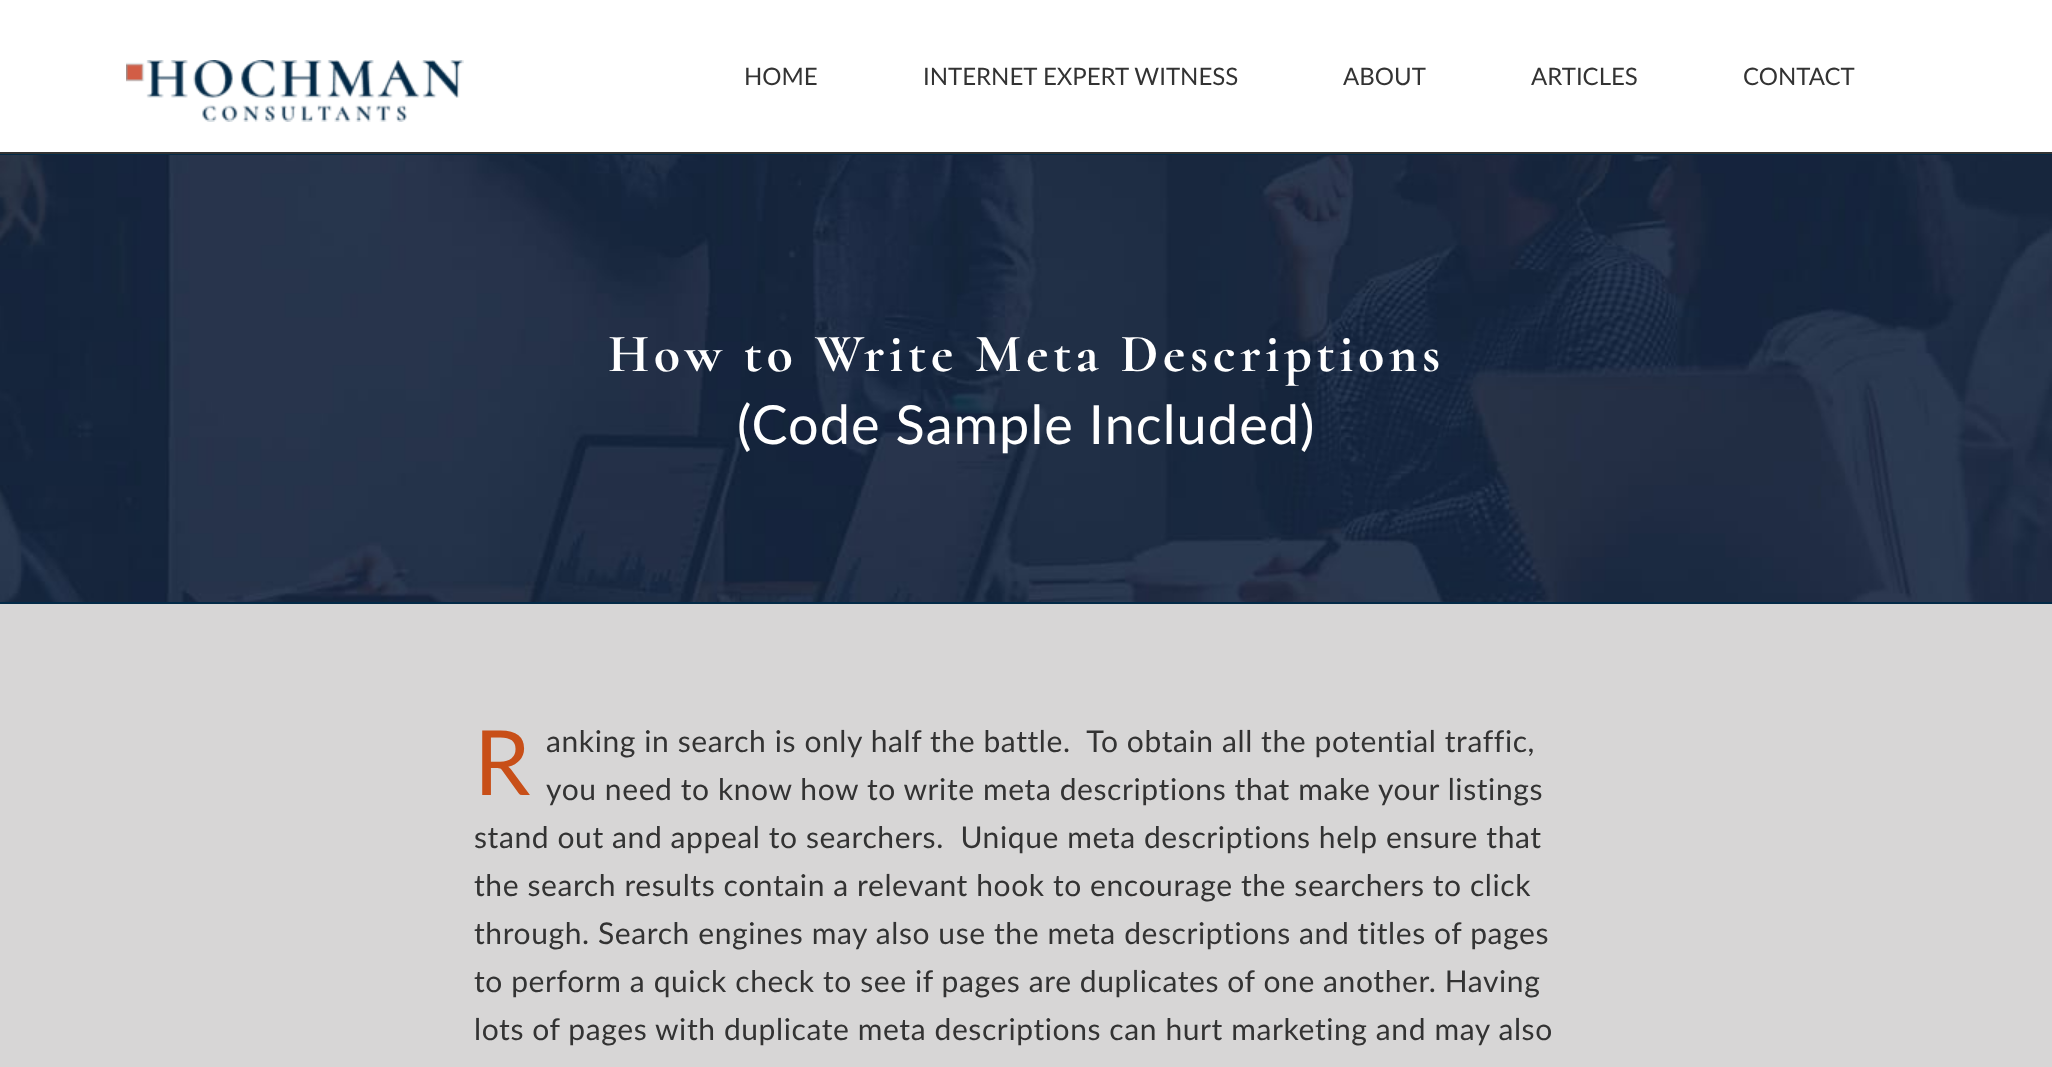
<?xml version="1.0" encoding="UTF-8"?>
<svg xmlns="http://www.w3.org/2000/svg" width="2052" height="1067">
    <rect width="100%" height="100%" fill="#D7D6D6"/>
    <rect x="0" y="0" width="2052" height="152" fill="#FFFFFF"/>
    <rect x="0" y="152" width="2052" height="2" fill="#333333"/>
    <image x="126" y="60" width="338" height="62" href="img_01.png"/>
    <text x="744" y="85" font-family="Lato" font-size="24" fill="#333333">HOME</text>
    <text x="923" y="85" font-family="Lato" font-size="24" fill="#333333">INTERNET EXPERT WITNESS</text>
    <text x="1343" y="85" font-family="Lato" font-size="24" fill="#333333">ABOUT</text>
    <text x="1531" y="85" font-family="Lato" font-size="24" fill="#333333">ARTICLES</text>
    <text x="1743" y="85" font-family="Lato" font-size="24" fill="#333333">CONTACT</text>
    <image x="0" y="155" width="2052" height="447" href="img_02.png"/>
    <rect x="0" y="154" width="2052" height="1" fill="#032A47"/>
    <rect x="0" y="602" width="2052" height="2" fill="#032A47"/>
    <text x="608" y="371" font-family="Cormorant" font-size="54" font-weight="700" letter-spacing="4.6" fill="#FFFFFF">How to Write Meta Descriptions</text>
    <text x="737" y="444" font-family="Lato" font-size="54" letter-spacing="1.1" fill="#FFFFFF">(Code Sample Included)</text>
    <text x="474" y="795" font-family="Lato" font-size="90" letter-spacing="0.6" fill="#C84F18">R</text>
    <text font-family="Lato" font-size="30" letter-spacing="0.6" fill="#333333" xml:space="preserve"><tspan x="546" y="752">anking in search is only half the battle.  To obtain all the potential traffic,</tspan><tspan x="546" y="800">you need to know how to write meta descriptions that make your listings</tspan></text>
    <text font-family="Lato" font-size="30" letter-spacing="0.6" fill="#333333" xml:space="preserve"><tspan x="474" y="848">stand out and appeal to searchers.  Unique meta descriptions help ensure that</tspan><tspan x="474" y="896">the search results contain a relevant hook to encourage the searchers to click</tspan><tspan x="474" y="944">through. Search engines may also use the meta descriptions and titles of pages</tspan><tspan x="474" y="992">to perform a quick check to see if pages are duplicates of one another. Having</tspan><tspan x="474" y="1040">lots of pages with duplicate meta descriptions can hurt marketing and may also</tspan></text>
</svg>
